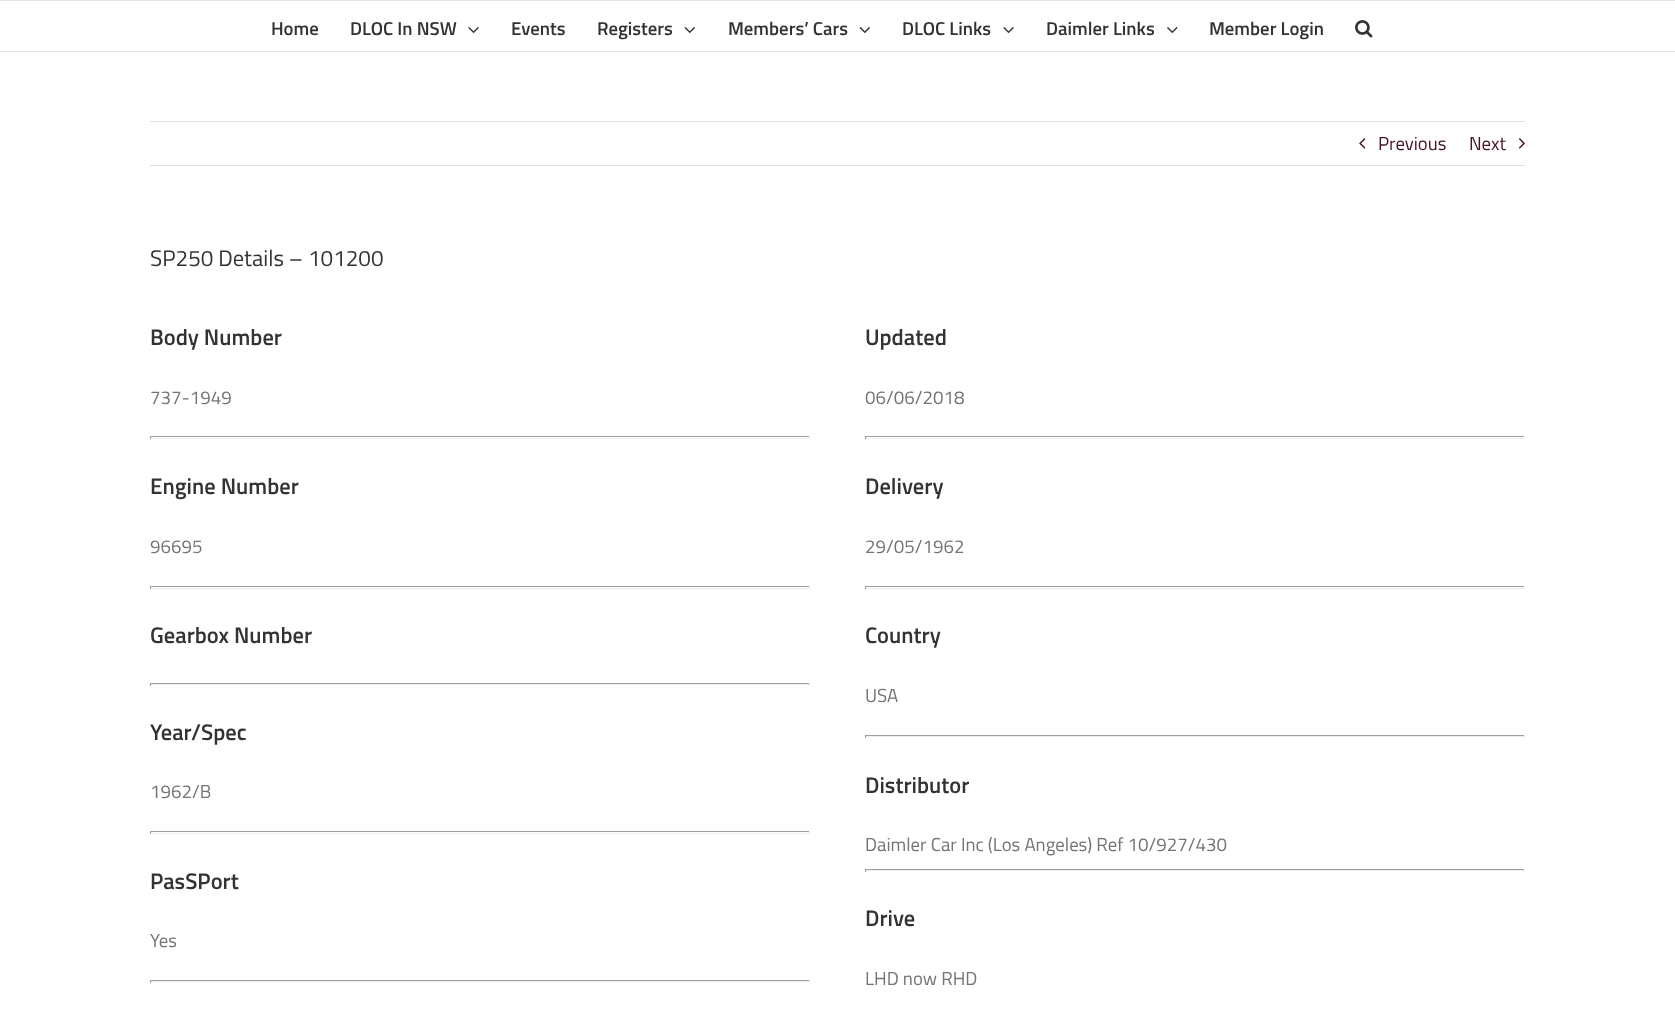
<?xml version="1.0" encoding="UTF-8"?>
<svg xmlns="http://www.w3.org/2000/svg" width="1675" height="1018">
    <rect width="100%" height="100%" fill="#FFFFFF"/>
    <rect x="0" y="0" width="1675" height="1" fill="#E5E5E5"/>
    <rect x="0" y="51" width="1675" height="1" fill="#E5E5E5"/>
    <text x="271" y="35" font-family="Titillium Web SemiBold" font-size="18.75" font-weight="600" fill="#333333">Home</text>
    <text x="350" y="35" font-family="Titillium Web SemiBold" font-size="18.75" font-weight="600" fill="#333333">DLOC In NSW</text>
    <image x="468" y="27" width="11" height="6" href="img_01.png"/>
    <text x="511" y="35" font-family="Titillium Web SemiBold" font-size="18.75" font-weight="600" fill="#333333">Events</text>
    <text x="597" y="35" font-family="Titillium Web SemiBold" font-size="18.75" font-weight="600" fill="#333333">Registers</text>
    <image x="684" y="27" width="11" height="6" href="img_02.png"/>
    <text x="728" y="35" font-family="Titillium Web SemiBold" font-size="18.75" font-weight="600" fill="#333333">Members’ Cars</text>
    <image x="859" y="27" width="11" height="6" href="img_02.png"/>
    <text x="902" y="35" font-family="Titillium Web SemiBold" font-size="18.75" font-weight="600" fill="#333333">DLOC Links</text>
    <image x="1003" y="27" width="11" height="6" href="img_01.png"/>
    <text x="1046" y="35" font-family="Titillium Web SemiBold" font-size="18.75" font-weight="600" fill="#333333">Daimler Links</text>
    <image x="1167" y="27" width="11" height="6" href="img_03.png"/>
    <text x="1209" y="35" font-family="Titillium Web SemiBold" font-size="18.75" font-weight="600" fill="#333333">Member Login</text>
    <image x="1355" y="20" width="18" height="18" href="img_04.png"/>
    <rect x="150" y="121" width="1375" height="1" fill="#E0DEDE"/>
    <rect x="150" y="165" width="1375" height="1" fill="#E0DEDE"/>
    <image x="1359" y="138" width="7" height="11" href="img_05.png"/>
    <text x="1378" y="150" font-family="Titillium Web" font-size="18.75" fill="#42151F">Previous</text>
    <text x="1469" y="150" font-family="Titillium Web" font-size="18.75" fill="#42151F">Next</text>
    <image x="1518" y="138" width="7" height="11" href="img_06.png"/>
    <text x="150" y="266" font-family="Titillium Web" font-size="22.5" fill="#333333">SP250 Details – 101200</text>
    <text x="150" y="345" font-family="Titillium Web SemiBold" font-size="22.5" font-weight="600" fill="#333333">Body Number</text>
    <text x="150" y="404" font-family="Titillium Web" font-size="18.75" fill="#747474">737-1949</text>
    <rect x="150" y="436" width="660" height="1" fill="#9F9F9F"/>
    <rect x="809" y="436" width="1" height="3" fill="#EEEEEE"/>
    <rect x="150" y="438" width="660" height="1" fill="#EEEEEE"/>
    <rect x="150" y="436" width="1" height="3" fill="#9F9F9F"/>
    <text x="150" y="494" font-family="Titillium Web SemiBold" font-size="22.5" font-weight="600" fill="#333333">Engine Number</text>
    <text x="150" y="553" font-family="Titillium Web" font-size="18.75" fill="#747474">96695</text>
    <rect x="150" y="586" width="660" height="1" fill="#9F9F9F"/>
    <rect x="809" y="586" width="1" height="3" fill="#EEEEEE"/>
    <rect x="150" y="588" width="660" height="1" fill="#EEEEEE"/>
    <rect x="150" y="586" width="1" height="3" fill="#9F9F9F"/>
    <text x="150" y="643" font-family="Titillium Web SemiBold" font-size="22.5" font-weight="600" fill="#333333">Gearbox Number</text>
    <rect x="150" y="683" width="660" height="1" fill="#9F9F9F"/>
    <rect x="809" y="683" width="1" height="3" fill="#EEEEEE"/>
    <rect x="150" y="684" width="660" height="1" fill="#EEEEEE"/>
    <rect x="150" y="683" width="1" height="3" fill="#9F9F9F"/>
    <text x="150" y="740" font-family="Titillium Web SemiBold" font-size="22.5" font-weight="600" fill="#333333">Year/Spec</text>
    <text x="150" y="798" font-family="Titillium Web" font-size="18.75" fill="#747474">1962/B</text>
    <rect x="150" y="831" width="660" height="1" fill="#9F9F9F"/>
    <rect x="809" y="831" width="1" height="3" fill="#EEEEEE"/>
    <rect x="150" y="833" width="660" height="1" fill="#EEEEEE"/>
    <rect x="150" y="831" width="1" height="3" fill="#9F9F9F"/>
    <text x="150" y="889" font-family="Titillium Web SemiBold" font-size="22.5" font-weight="600" fill="#333333">PasSPort</text>
    <text x="150" y="947" font-family="Titillium Web" font-size="18.75" fill="#747474">Yes</text>
    <rect x="150" y="980" width="660" height="1" fill="#9F9F9F"/>
    <rect x="809" y="980" width="1" height="3" fill="#EEEEEE"/>
    <rect x="150" y="981" width="660" height="1" fill="#EEEEEE"/>
    <rect x="150" y="980" width="1" height="3" fill="#9F9F9F"/>
    <text x="865" y="345" font-family="Titillium Web SemiBold" font-size="22.5" font-weight="600" fill="#333333">Updated</text>
    <text x="865" y="404" font-family="Titillium Web" font-size="18.75" fill="#747474">06/06/2018</text>
    <rect x="865" y="436" width="660" height="1" fill="#9F9F9F"/>
    <rect x="1524" y="436" width="1" height="3" fill="#EEEEEE"/>
    <rect x="865" y="438" width="660" height="1" fill="#EEEEEE"/>
    <rect x="865" y="436" width="1" height="3" fill="#9F9F9F"/>
    <text x="865" y="494" font-family="Titillium Web SemiBold" font-size="22.5" font-weight="600" fill="#333333">Delivery</text>
    <text x="865" y="553" font-family="Titillium Web" font-size="18.75" fill="#747474">29/05/1962</text>
    <rect x="865" y="586" width="660" height="1" fill="#9F9F9F"/>
    <rect x="1524" y="586" width="1" height="3" fill="#EEEEEE"/>
    <rect x="865" y="588" width="660" height="1" fill="#EEEEEE"/>
    <rect x="865" y="586" width="1" height="3" fill="#9F9F9F"/>
    <text x="865" y="643" font-family="Titillium Web SemiBold" font-size="22.5" font-weight="600" fill="#333333">Country</text>
    <text x="865" y="702" font-family="Titillium Web" font-size="18.75" fill="#747474">USA</text>
    <rect x="865" y="735" width="660" height="1" fill="#9F9F9F"/>
    <rect x="1524" y="735" width="1" height="3" fill="#EEEEEE"/>
    <rect x="865" y="736" width="660" height="1" fill="#EEEEEE"/>
    <rect x="865" y="735" width="1" height="3" fill="#9F9F9F"/>
    <text x="865" y="793" font-family="Titillium Web SemiBold" font-size="22.5" font-weight="600" fill="#333333">Distributor</text>
    <text x="865" y="851" font-family="Titillium Web" font-size="18.75" fill="#747474">Daimler Car Inc (Los Angeles) Ref 10/927/430</text>
    <rect x="865" y="869" width="660" height="1" fill="#9F9F9F"/>
    <rect x="1524" y="869" width="1" height="3" fill="#EEEEEE"/>
    <rect x="865" y="870" width="660" height="1" fill="#EEEEEE"/>
    <rect x="865" y="869" width="1" height="3" fill="#9F9F9F"/>
    <text x="865" y="926" font-family="Titillium Web SemiBold" font-size="22.5" font-weight="600" fill="#333333">Drive</text>
    <text x="865" y="985" font-family="Titillium Web" font-size="18.75" fill="#747474">LHD now RHD</text>
</svg>
